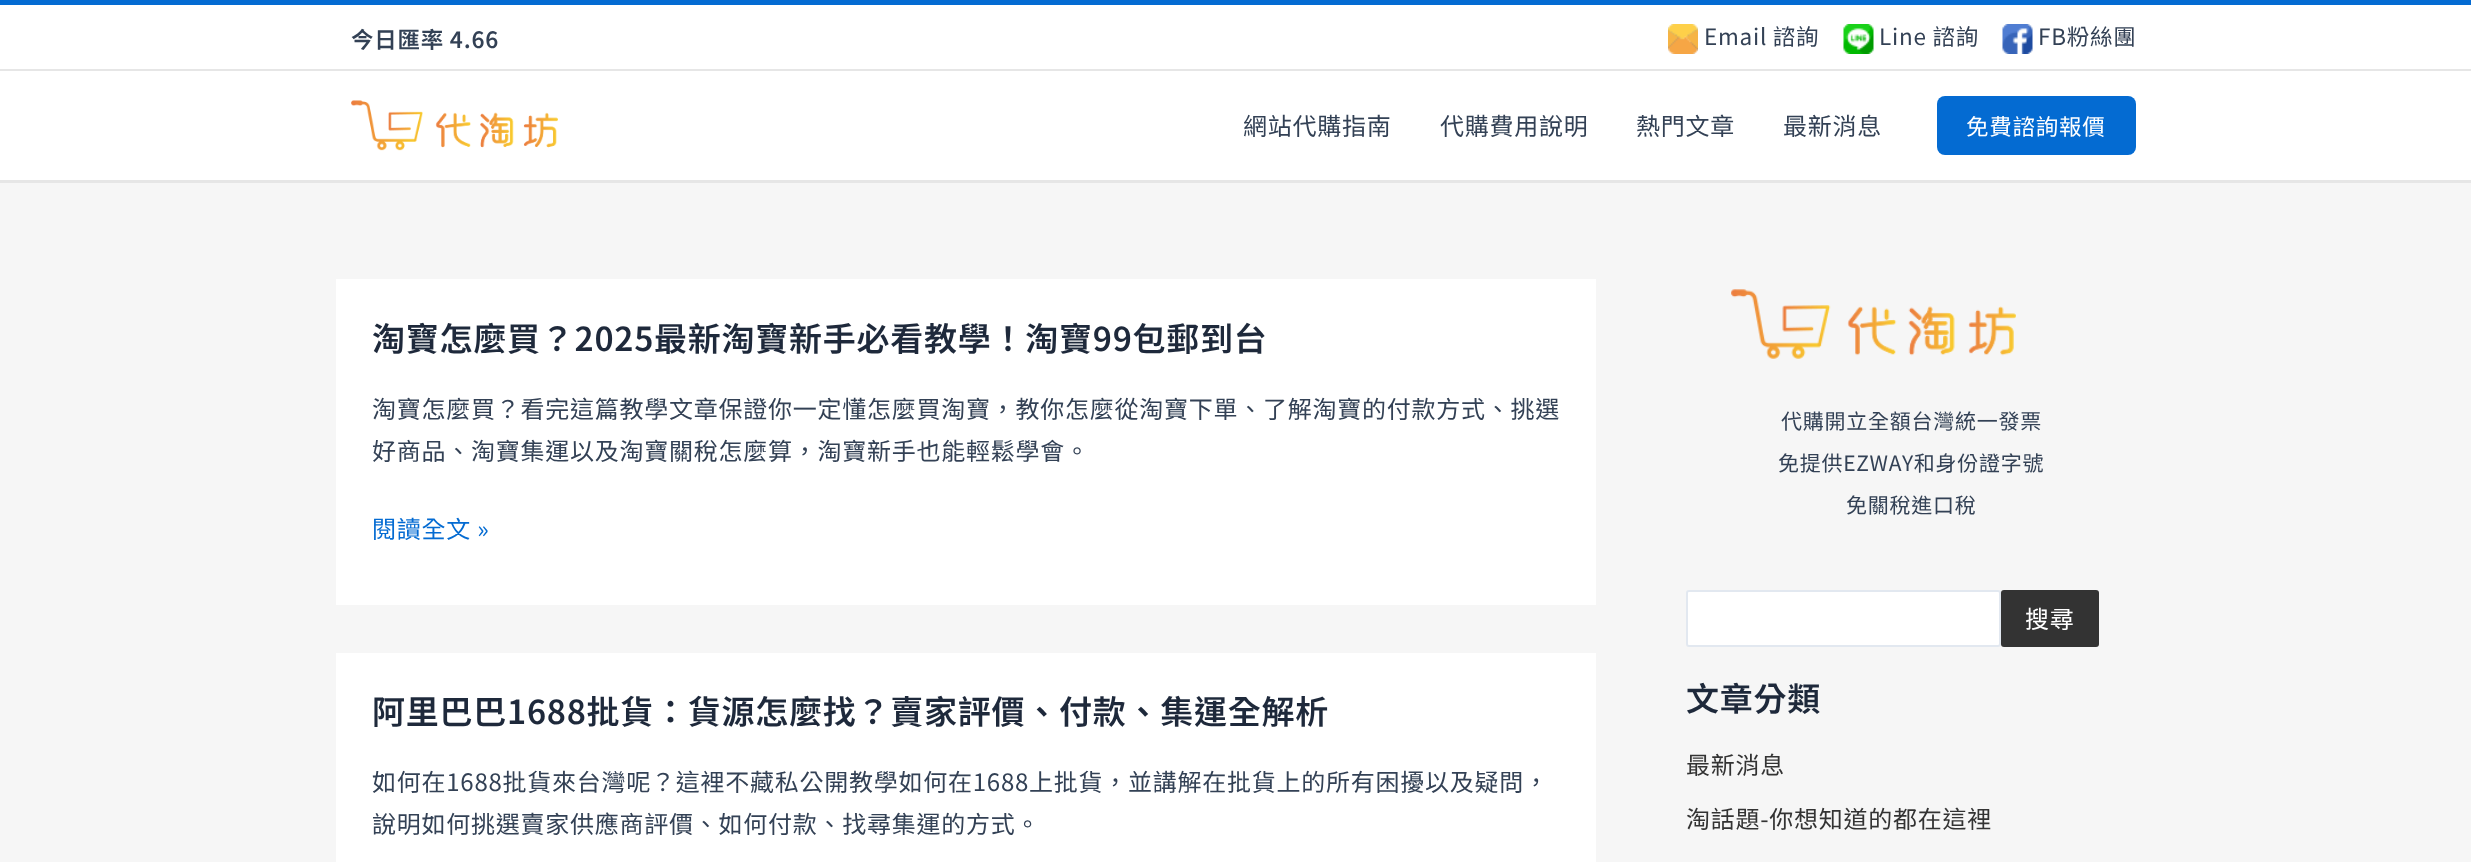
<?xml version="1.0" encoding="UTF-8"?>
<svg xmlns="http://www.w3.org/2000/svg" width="2471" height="862">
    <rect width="100%" height="100%" fill="#F6F6F6"/>
    <rect x="0" y="5" width="2471" height="64" fill="#FFFFFF"/>
    <rect x="0" y="0" width="2471" height="5" fill="#046BD2"/>
    <rect x="0" y="69" width="2471" height="2" fill="#E6E6E6"/>
    <text x="351" y="48" font-family="Noto Sans TC" font-size="22.5" font-weight="600" letter-spacing="0.75" fill="#334155">今日匯率 4.66</text>
    <image x="1668" y="24" width="30" height="30" href="img_01.png"/>
    <text x="1704" y="45" font-family="Noto Sans TC" font-size="22.5" letter-spacing="0.75" fill="#334155">Email 諮詢</text>
    <image x="1843" y="24" width="31" height="30" href="img_02.png"/>
    <text x="1879" y="45" font-family="Noto Sans TC" font-size="22.5" letter-spacing="0.75" fill="#334155">Line 諮詢</text>
    <image x="2002" y="24" width="31" height="30" href="img_03.png"/>
    <text x="2038" y="45" font-family="Noto Sans TC" font-size="22.5" letter-spacing="0.75" fill="#334155">FB粉絲團</text>
    <rect x="0" y="71" width="2471" height="109" fill="#FFFFFF"/>
    <rect x="0" y="180" width="2471" height="3" fill="#E6E6E6"/>
    <image x="351" y="100" width="207" height="51" href="img_04.png"/>
    <text x="1243" y="135" font-family="Noto Sans TC" font-size="24" letter-spacing="0.75" fill="#334155">網站代購指南</text>
    <text x="1440" y="135" font-family="Noto Sans TC" font-size="24" letter-spacing="0.75" fill="#334155">代購費用說明</text>
    <text x="1636" y="135" font-family="Noto Sans TC" font-size="24" letter-spacing="0.75" fill="#334155">熱門文章</text>
    <text x="1783" y="135" font-family="Noto Sans TC" font-size="24" letter-spacing="0.75" fill="#334155">最新消息</text>
    <rect x="1937" y="96" width="199" height="59" rx="8" fill="#046BD2"/>
    <text x="1966" y="135" font-family="Noto Sans TC" font-size="22.5" letter-spacing="0.75" fill="#FFFFFF">免費諮詢報價</text>
    <rect x="336" y="279" width="1260" height="326" fill="#FFFFFF"/>
    <text x="372" y="351" font-family="Noto Sans TC" font-size="33" font-weight="600" letter-spacing="0.75" fill="#1E293B">淘寶怎麼買？2025最新淘寶新手必看教學！淘寶99包郵到台</text>
    <text font-family="Noto Sans TC" font-size="24" letter-spacing="0.75" fill="#334155">
        <tspan x="372" y="418">淘寶怎麼買？看完這篇教學文章保證你一定懂怎麼買淘寶，教你怎麼從淘寶下單、了解淘寶的付款方式、挑選</tspan>
        <tspan x="372" y="460">好商品、淘寶集運以及淘寶關稅怎麼算，淘寶新手也能輕鬆學會。</tspan>
    </text>
    <text x="372" y="538" font-family="Noto Sans TC" font-size="24" letter-spacing="0.75" fill="#046BD2">閱讀全文 »</text>
    <rect x="336" y="653" width="1260" height="209" fill="#FFFFFF"/>
    <text x="372" y="724" font-family="Noto Sans TC" font-size="33" font-weight="600" letter-spacing="0.75" fill="#1E293B">阿里巴巴1688批貨：貨源怎麼找？賣家評價、付款、集運全解析</text>
    <text font-family="Noto Sans TC" font-size="24" letter-spacing="0.75" fill="#334155">
        <tspan x="372" y="791">如何在1688批貨來台灣呢？這裡不藏私公開教學如何在1688上批貨，並講解在批貨上的所有困擾以及疑問，</tspan>
        <tspan x="372" y="833">說明如何挑選賣家供應商評價、如何付款、找尋集運的方式。</tspan>
    </text>
    <image x="1731" y="289" width="285" height="70" href="img_05.png"/>
    <text x="1781" y="429" font-family="Noto Sans TC" font-size="21" letter-spacing="0.75" fill="#334155">代購開立全額台灣統一發票</text>
    <text x="1778" y="471" font-family="Noto Sans TC" font-size="21" letter-spacing="0.75" fill="#334155">免提供EZWAY和身份證字號</text>
    <text x="1846" y="513" font-family="Noto Sans TC" font-size="21" letter-spacing="0.75" fill="#334155">免關稅進口稅</text>
    <rect x="1687" y="591" width="313" height="55" rx="2" fill="#FFFFFF" stroke="#E2E8F0" stroke-width="2"/>
    <rect x="2001" y="590" width="98" height="57" rx="3" fill="#333333"/>
    <text x="2025" y="628" font-family="Noto Sans TC" font-size="24" letter-spacing="0.75" fill="#FFFFFF">搜尋</text>
    <text x="1686" y="711" font-family="Noto Sans TC" font-size="33" font-weight="600" letter-spacing="0.75" fill="#1E293B">文章分類</text>
    <text x="1686" y="774" font-family="Noto Sans TC" font-size="24" letter-spacing="0.75" fill="#333333">最新消息</text>
    <text x="1686" y="828" font-family="Noto Sans TC" font-size="24" letter-spacing="0.75" fill="#333333">淘話題-你想知道的都在這裡</text>
</svg>
